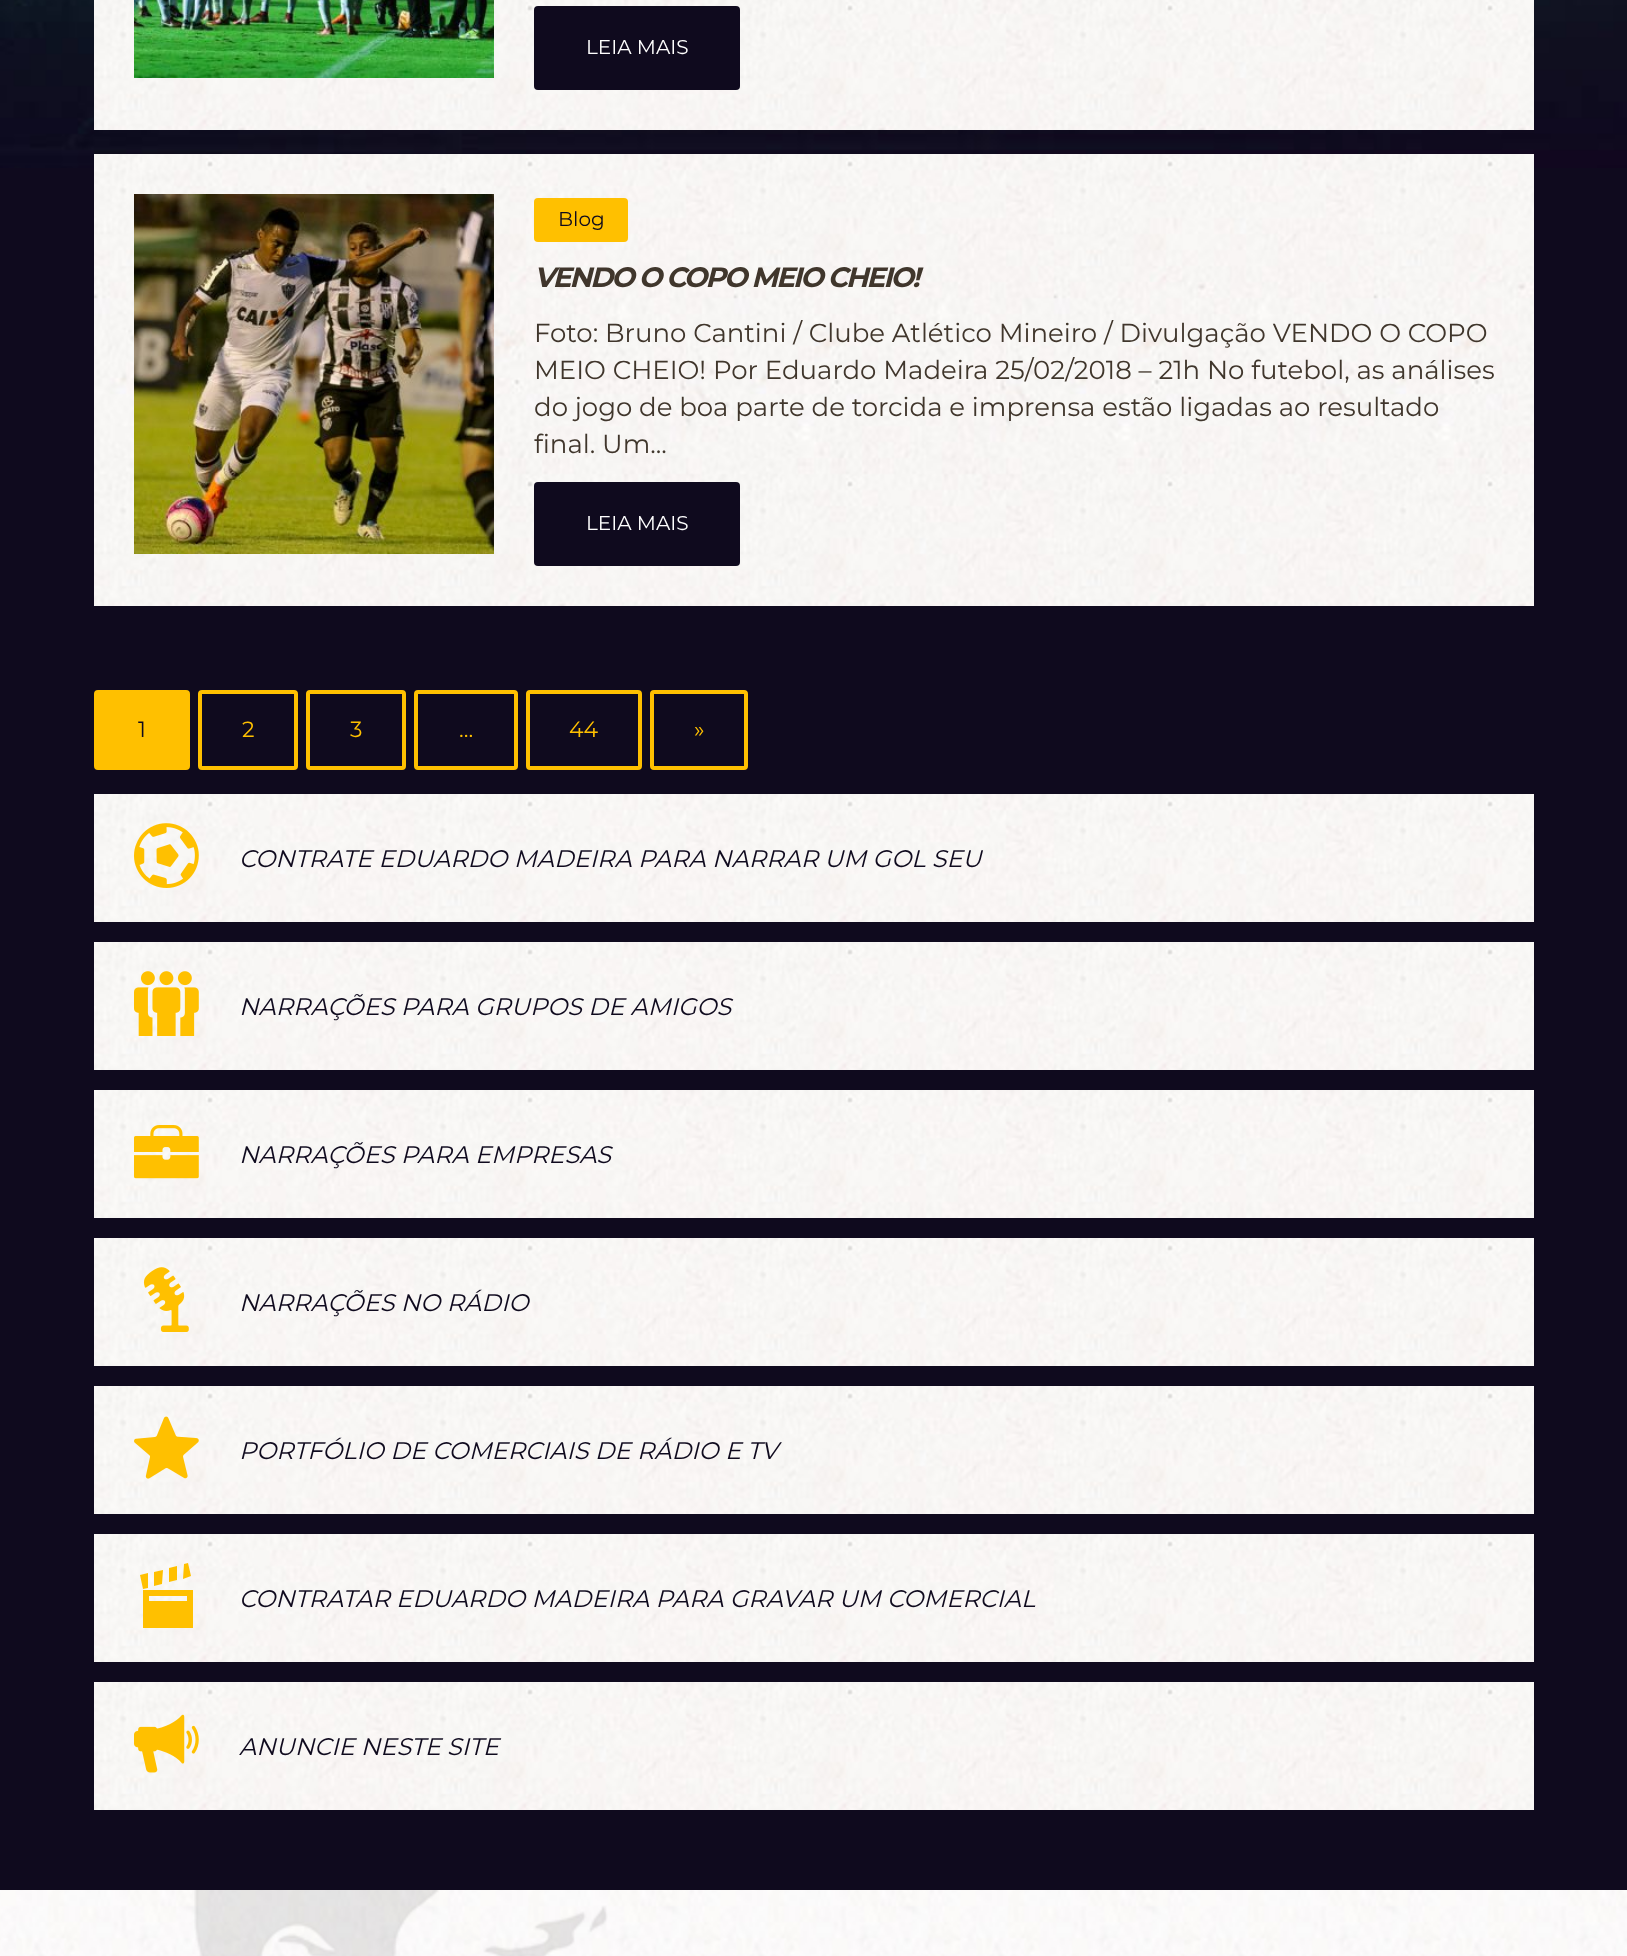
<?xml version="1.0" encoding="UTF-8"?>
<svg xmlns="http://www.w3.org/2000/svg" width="1627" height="1956">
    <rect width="100%" height="100%" fill="#0F0A1E"/>
    <image x="0" y="0" width="1627" height="168" href="img_01.png"/>
    <image x="94" y="0" width="1440" height="130" href="img_02.png"/>
    <image x="134" y="0" width="360" height="78" href="img_03.png"/>
    <rect x="534" y="6" width="206" height="84" rx="4" fill="#0F0A1E"/>
    <text x="586" y="54" font-family="Montserrat" font-size="20" fill="#FFFFFF">LEIA MAIS</text>
    <image x="94" y="154" width="1440" height="452" href="img_04.png"/>
    <image x="134" y="194" width="360" height="360" href="img_05.png"/>
    <rect x="534" y="198" width="94" height="44" rx="4" fill="#FFC000"/>
    <text x="558" y="226" font-family="Montserrat" font-size="20" fill="#0F0A1E">Blog</text>
    <text x="534" y="287" font-family="Montserrat" font-size="28" font-weight="700" font-style="italic" letter-spacing="-2" fill="#40362C">VENDO O COPO MEIO CHEIO!</text>
    <text font-family="Montserrat" font-size="26" fill="#40362C">
        <tspan x="534" y="342">Foto: Bruno Cantini / Clube Atlético Mineiro / Divulgação VENDO O COPO</tspan>
        <tspan x="534" y="379">MEIO CHEIO! Por Eduardo Madeira 25/02/2018 – 21h No futebol, as análises</tspan>
        <tspan x="534" y="416">do jogo de boa parte de torcida e imprensa estão ligadas ao resultado</tspan>
        <tspan x="534" y="453">final. Um...</tspan>
    </text>
    <rect x="534" y="482" width="206" height="84" rx="4" fill="#0F0A1E"/>
    <text x="586" y="530" font-family="Montserrat" font-size="20" fill="#FFFFFF">LEIA MAIS</text>
    <rect x="96" y="692" width="92" height="76" rx="2" fill="#FFC000" stroke="#FFC000" stroke-width="4"/>
    <text x="138" y="737" font-family="Montserrat" font-size="22" fill="#0F0A1E">1</text>
    <rect x="200" y="692" width="96" height="76" rx="2" fill="none" stroke="#FFC000" stroke-width="4"/>
    <text x="242" y="737" font-family="Montserrat" font-size="22" fill="#FFC000">2</text>
    <rect x="308" y="692" width="96" height="76" rx="2" fill="none" stroke="#FFC000" stroke-width="4"/>
    <text x="350" y="737" font-family="Montserrat" font-size="22" fill="#FFC000">3</text>
    <rect x="416" y="692" width="100" height="76" rx="2" fill="none" stroke="#FFC000" stroke-width="4"/>
    <text x="459" y="737" font-family="Montserrat" font-size="22" fill="#FFC000">…</text>
    <rect x="528" y="692" width="112" height="76" rx="2" fill="none" stroke="#FFC000" stroke-width="4"/>
    <text x="569" y="737" font-family="Montserrat" font-size="22" fill="#FFC000">44</text>
    <rect x="652" y="692" width="94" height="76" rx="2" fill="none" stroke="#FFC000" stroke-width="4"/>
    <text x="694" y="737" font-family="Montserrat" font-size="22" fill="#FFC000">»</text>
    <image x="94" y="794" width="1440" height="128" href="img_06.png"/>
    <image x="134" y="823" width="65" height="65" href="img_07.png"/>
    <text x="239" y="867" font-family="Montserrat" font-size="24" font-style="italic" fill="#0F0A1E">CONTRATE EDUARDO MADEIRA PARA NARRAR UM GOL SEU</text>
    <image x="94" y="942" width="1440" height="128" href="img_06.png"/>
    <image x="134" y="971" width="65" height="65" href="img_08.png"/>
    <text x="239" y="1015" font-family="Montserrat" font-size="24" font-style="italic" fill="#0F0A1E">NARRAÇÕES PARA GRUPOS DE AMIGOS</text>
    <image x="94" y="1090" width="1440" height="128" href="img_06.png"/>
    <image x="134" y="1125" width="65" height="54" href="img_09.png"/>
    <text x="239" y="1163" font-family="Montserrat" font-size="24" font-style="italic" fill="#0F0A1E">NARRAÇÕES PARA EMPRESAS</text>
    <image x="94" y="1238" width="1440" height="128" href="img_06.png"/>
    <image x="143" y="1267" width="46" height="65" href="img_10.png"/>
    <text x="239" y="1311" font-family="Montserrat" font-size="24" font-style="italic" fill="#0F0A1E">NARRAÇÕES NO RÁDIO</text>
    <image x="94" y="1386" width="1440" height="128" href="img_06.png"/>
    <image x="134" y="1416" width="65" height="63" href="img_11.png"/>
    <text x="239" y="1459" font-family="Montserrat" font-size="24" font-style="italic" fill="#0F0A1E">PORTFÓLIO DE COMERCIAIS DE RÁDIO E TV</text>
    <image x="94" y="1534" width="1440" height="128" href="img_06.png"/>
    <path d="M 163 1570 L 162 1584 L 154 1586 V 1572 Z M 177 1566 V 1580 L 169 1582 V 1568 Z M 188 1563 L 191 1576 L 183 1579 L 184 1564 Z M 148 1588 L 143 1589 L 140 1575 L 148 1573 Z M 143 1590 H 193 V 1628 H 143 Z M 187 1601 V 1596 H 149 V 1601 Z" fill="#FFC000"/>
    <text x="239" y="1607" font-family="Montserrat" font-size="24" font-style="italic" fill="#0F0A1E">CONTRATAR EDUARDO MADEIRA PARA GRAVAR UM COMERCIAL</text>
    <image x="94" y="1682" width="1440" height="128" href="img_06.png"/>
    <image x="134" y="1714" width="65" height="59" href="img_12.png"/>
    <text x="239" y="1755" font-family="Montserrat" font-size="24" font-style="italic" fill="#0F0A1E">ANUNCIE NESTE SITE</text>
    <image x="0" y="1890" width="1627" height="66" href="img_13.png"/>
    <image x="194" y="1890" width="414" height="66" href="img_14.png"/>
</svg>
